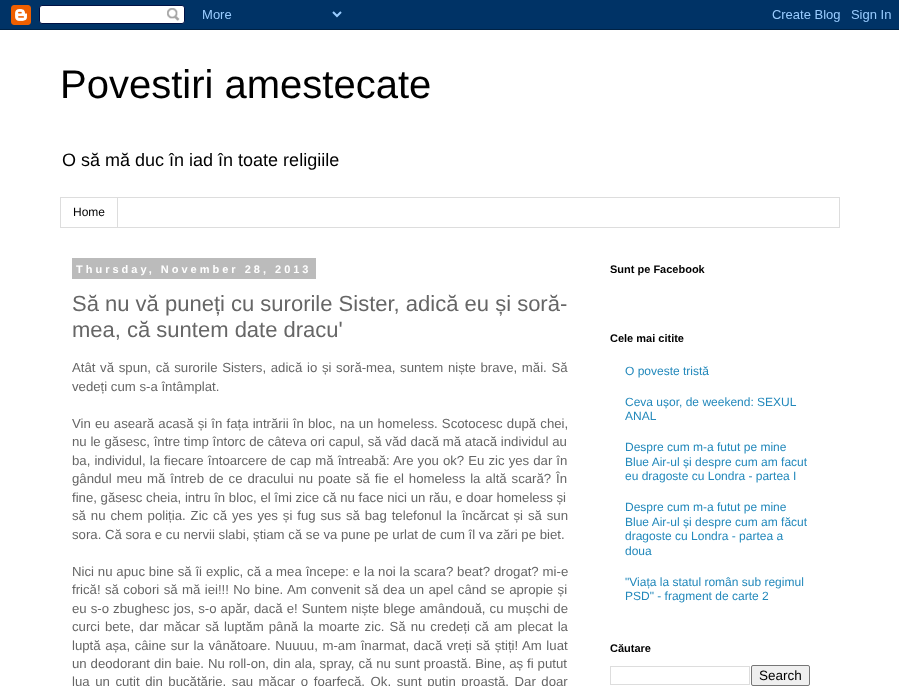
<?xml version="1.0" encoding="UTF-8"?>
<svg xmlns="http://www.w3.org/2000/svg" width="899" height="686">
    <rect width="100%" height="100%" fill="#FFFFFF"/>
    <image x="0" y="0" width="899" height="30" href="img_01.png"/>
    <text x="60" y="98" font-family="Liberation Sans" font-size="40" fill="#000000">Povestiri amestecate</text>
    <text x="62" y="166" font-family="Liberation Sans" font-size="18" fill="#000000">O să mă duc în iad în toate religiile</text>
    <rect x="60.5" y="197.5" width="779" height="30" fill="none" stroke="#DDDDDD"/>
    <rect x="117" y="198" width="1" height="29" fill="#DDDDDD"/>
    <text x="73" y="216" font-family="Liberation Sans" font-size="12" fill="#000000">Home</text>
    <rect x="72" y="258" width="244" height="21" fill="#BBBBBB"/>
    <text x="76" y="273" font-family="Liberation Sans" font-size="11" font-weight="700" letter-spacing="3" fill="#FFFFFF">Thursday, November 28, 2013</text>
    <text font-family="Liberation Sans" font-size="22" fill="#666666">
        <tspan x="72" y="311">Să nu vă puneți cu surorile Sister, adică eu și soră-</tspan>
        <tspan x="72" y="337">mea, că suntem date dracu'</tspan>
    </text>
    <text font-family="Liberation Sans" font-size="13.2" fill="#666666">
        <tspan x="72" y="372" word-spacing="1">Atât vă spun, că surorile Sisters, adică io și soră-mea, suntem niște brave, măi. Să</tspan>
        <tspan x="72" y="391">vedeți cum s-a întâmplat.</tspan>
    </text>
    <text font-family="Liberation Sans" font-size="13.2" fill="#666666">
        <tspan x="72" y="428" word-spacing="0.5">Vin eu aseară acasă și în fața intrării în bloc, na un homeless. Scotocesc după chei,</tspan>
        <tspan x="72" y="446" word-spacing="0.1">nu le găsesc, între timp întorc de câteva ori capul, să văd dacă mă atacă individul au</tspan>
        <tspan x="72" y="465" word-spacing="0.4">ba, individul, la fiecare întoarcere de cap mă întreabă: Are you ok? Eu zic yes dar în</tspan>
        <tspan x="72" y="483" word-spacing="1.25">gândul meu mă întreb de ce dracului nu poate să fie el homeless la altă scară? În</tspan>
        <tspan x="72" y="502">fine, găsesc cheia, intru în bloc, el îmi zice că nu face nici un rău, e doar homeless și</tspan>
        <tspan x="72" y="520" word-spacing="1.25">să nu chem poliția. Zic că yes yes și fug sus să bag telefonul la încărcat și să sun</tspan>
        <tspan x="72" y="539">sora. Că sora e cu nervii slabi, știam că se va pune pe urlat de cum îl va zări pe biet.</tspan>
    </text>
    <text font-family="Liberation Sans" font-size="13.2" fill="#666666">
        <tspan x="72" y="576" word-spacing="0.2">Nici nu apuc bine să îi explic, că a mea începe: e la noi la scara? beat? drogat? mi-e</tspan>
        <tspan x="72" y="594" word-spacing="0.75">frică! să cobori să mă iei!!! No bine. Am convenit să dea un apel când se apropie și</tspan>
        <tspan x="72" y="613" word-spacing="0.4">eu s-o zbughesc jos, s-o apăr, dacă e! Suntem niște blege amândouă, cu mușchi de</tspan>
        <tspan x="72" y="631" word-spacing="1.4">curci bete, dar măcar să luptăm până la moarte zic. Să nu credeți că am plecat la</tspan>
        <tspan x="72" y="650" word-spacing="0.9">luptă așa, câine sur la vânătoare. Nuuuu, m-am înarmat, dacă vreți să știți! Am luat</tspan>
        <tspan x="72" y="668" word-spacing="0.25">un deodorant din baie. Nu roll-on, din ala, spray, că nu sunt proastă. Bine, aș fi putut</tspan>
        <tspan x="72" y="686" word-spacing="1.9">lua un cuțit din bucătărie, sau măcar o foarfecă. Ok, sunt puțin proastă. Dar doar</tspan>
    </text>
    <text x="610" y="273" font-family="Liberation Sans" font-size="11" font-weight="700" fill="#000000">Sunt pe Facebook</text>
    <text x="610" y="342" font-family="Liberation Sans" font-size="11" font-weight="700" fill="#000000">Cele mai citite</text>
    <text x="625" y="375" font-family="Liberation Sans" font-size="12" fill="#2288BB">O poveste tristă</text>
    <text font-family="Liberation Sans" font-size="12" fill="#2288BB">
        <tspan x="625" y="406">Ceva ușor, de weekend: SEXUL</tspan>
        <tspan x="625" y="420">ANAL</tspan>
    </text>
    <text font-family="Liberation Sans" font-size="12" fill="#2288BB">
        <tspan x="625" y="451">Despre cum m-a futut pe mine</tspan>
        <tspan x="625" y="466">Blue Air-ul și despre cum am facut</tspan>
        <tspan x="625" y="480">eu dragoste cu Londra - partea I</tspan>
    </text>
    <text font-family="Liberation Sans" font-size="12" fill="#2288BB">
        <tspan x="625" y="511">Despre cum m-a futut pe mine</tspan>
        <tspan x="625" y="526">Blue Air-ul și despre cum am făcut</tspan>
        <tspan x="625" y="540">dragoste cu Londra - partea a</tspan>
        <tspan x="625" y="555">doua</tspan>
    </text>
    <text font-family="Liberation Sans" font-size="12" fill="#2288BB">
        <tspan x="625" y="586">"Viața la statul român sub regimul</tspan>
        <tspan x="625" y="600">PSD" - fragment de carte 2</tspan>
    </text>
    <text x="610" y="652" font-family="Liberation Sans" font-size="11" font-weight="700" fill="#000000">Căutare</text>
    <rect x="610.5" y="666.5" width="139" height="18" fill="none" stroke="#DDDDDD"/>
    <rect x="751.5" y="665.5" width="58" height="20" rx="1.5" fill="#EFEFEF" stroke="#767676"/>
    <text x="759" y="680" font-family="Liberation Sans" font-size="13.5" fill="#000000">Search</text>
</svg>
